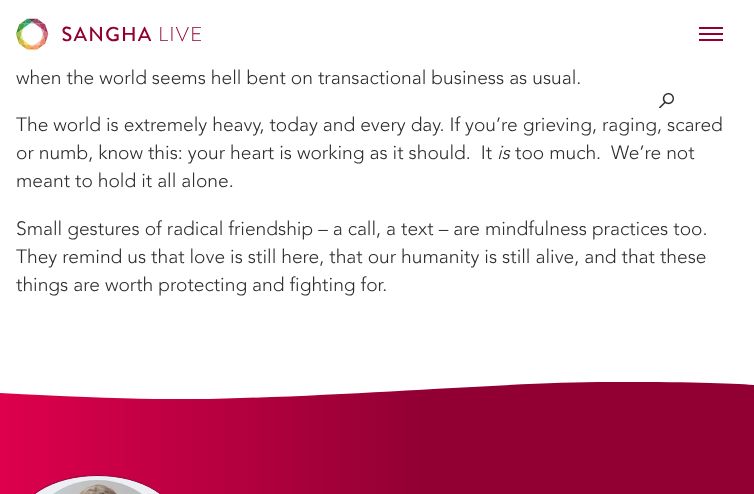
<?xml version="1.0" encoding="UTF-8"?>
<svg xmlns="http://www.w3.org/2000/svg" width="754" height="494">
    <defs>
        <linearGradient id="g1" gradientUnits="userSpaceOnUse" x1="754" y1="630" x2="0" y2="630"><stop offset="0.44" stop-color="#920033"/><stop offset="1" stop-color="#DE004D"/></linearGradient>
        <clipPath id="clip1"><rect x="0" y="379" width="754" height="20"/></clipPath>
    </defs>
    <rect width="100%" height="100%" fill="#FFFFFF"/>
    <image x="16" y="18" width="185" height="32" href="img_01.png"/>
    <rect x="699" y="27" width="24" height="2" fill="#920033"/>
    <rect x="699" y="33" width="24" height="2" fill="#920033"/>
    <rect x="699" y="39" width="24" height="2" fill="#920033"/>
    <image x="659" y="93" width="15" height="15" href="img_02.png"/>
    <text x="16" y="84" font-family="Avenir" font-size="19.2" font-weight="300" fill="#2D2D2D">when the world seems hell bent on transactional business as usual.</text>
    <text font-family="Avenir" font-size="19.2" font-weight="300" fill="#2D2D2D" xml:space="preserve"><tspan x="16" y="131">The world is extremely heavy, today and every day. If you’re grieving, raging, scared</tspan><tspan x="16" y="159">or numb, know this: your heart is working as it should.  It</tspan></text>
    <text x="497" y="159" font-family="Avenir" font-size="19.2" font-weight="300" font-style="italic" fill="#2D2D2D">is</text>
    <text x="515" y="159" font-family="Avenir" font-size="19.2" font-weight="300" fill="#2D2D2D" xml:space="preserve">too much.  We’re not</text>
    <text x="16" y="187" font-family="Avenir" font-size="19.2" font-weight="300" fill="#2D2D2D">meant to hold it all alone.</text>
    <text font-family="Avenir" font-size="19.2" font-weight="300" fill="#2D2D2D">
        <tspan x="16" y="235">Small gestures of radical friendship – a call, a text – are mindfulness practices too.</tspan>
        <tspan x="16" y="263">They remind us that love is still here, that our humanity is still alive, and that these</tspan>
        <tspan x="16" y="291">things are worth protecting and fighting for.</tspan>
    </text>
    <rect x="0" y="382" width="754" height="112" fill="url(#g1)"/>
    <g clip-path="url(#clip1)">
        <path d="M 0 379 V 393 C 94 398 164 400 209 399 C 371 395 512 382 608 382 C 684 382 732 383 754 385 V 379 Z" fill="#FFFFFF"/>
    </g>
    <rect x="16.5" y="475.5" width="162" height="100" rx="80.5" fill="#ECF0F4" stroke="#920033"/>
    <image x="53" y="480" width="89" height="14" href="img_03.png"/>
</svg>
